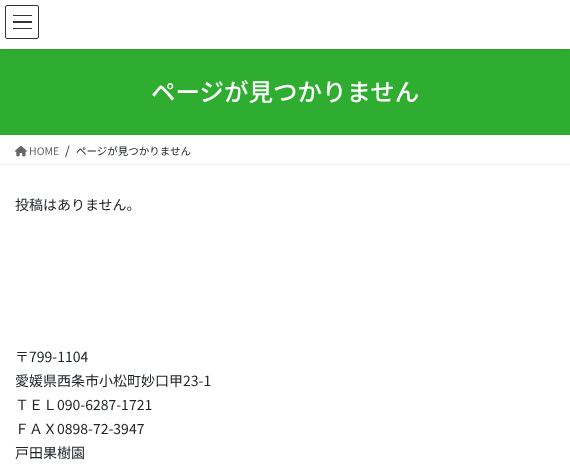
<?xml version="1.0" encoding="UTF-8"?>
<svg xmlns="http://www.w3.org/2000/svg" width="570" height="475">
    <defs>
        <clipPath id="clip1"><rect x="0" y="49" width="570" height="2"/></clipPath>
        <filter id="blur1" x="-50%" y="-200%" width="200%" height="500%"><feGaussianBlur stdDeviation="1.5"/></filter>
    </defs>
    <rect width="100%" height="100%" fill="#FFFFFF"/>
    <rect x="0" y="49" width="570" height="86" fill="#2EAD30"/>
    <g clip-path="url(#clip1)">
        <rect x="0" y="1" width="570" height="49" fill="#000000" fill-opacity="0.1" filter="url(#blur1)"/>
    </g>
    <rect x="13" y="15" width="19" height="1" fill="#333333"/>
    <rect x="13" y="21" width="19" height="2" fill="#333333"/>
    <rect x="13" y="28" width="19" height="1" fill="#333333"/>
    <rect x="5.5" y="5.5" width="33" height="33" rx="1.5" fill="none" stroke="#333333"/>
    <text x="151" y="101" font-family="Noto Sans JP" font-size="24.5" font-weight="500" fill="#FFFFFF">ページが見つかりません</text>
    <rect x="0" y="164" width="570" height="1" fill="#F2F2F2"/>
    <image x="15" y="145" width="12" height="12" href="img_01.png"/>
    <text x="29" y="155" font-family="Noto Sans JP" font-size="10.5" fill="#666666">HOME</text>
    <text x="65" y="155" font-family="Noto Sans JP" font-size="12" fill="#212529">/</text>
    <text x="76" y="155" font-family="Noto Sans JP" font-size="10.5" fill="#212529">ページが見つかりません</text>
    <text x="15" y="210" font-family="Noto Sans JP" font-size="14" fill="#212529">投稿はありません。</text>
    <text font-family="Noto Sans JP" font-size="14" fill="#212529">
        <tspan x="15" y="362">〒799-1104</tspan>
        <tspan x="15" y="386">愛媛県西条市小松町妙口甲23-1</tspan>
        <tspan x="15" y="410">ＴＥＬ090-6287-1721</tspan>
        <tspan x="15" y="434">ＦＡＸ0898-72-3947</tspan>
        <tspan x="15" y="458">戸田果樹園</tspan>
    </text>
</svg>
